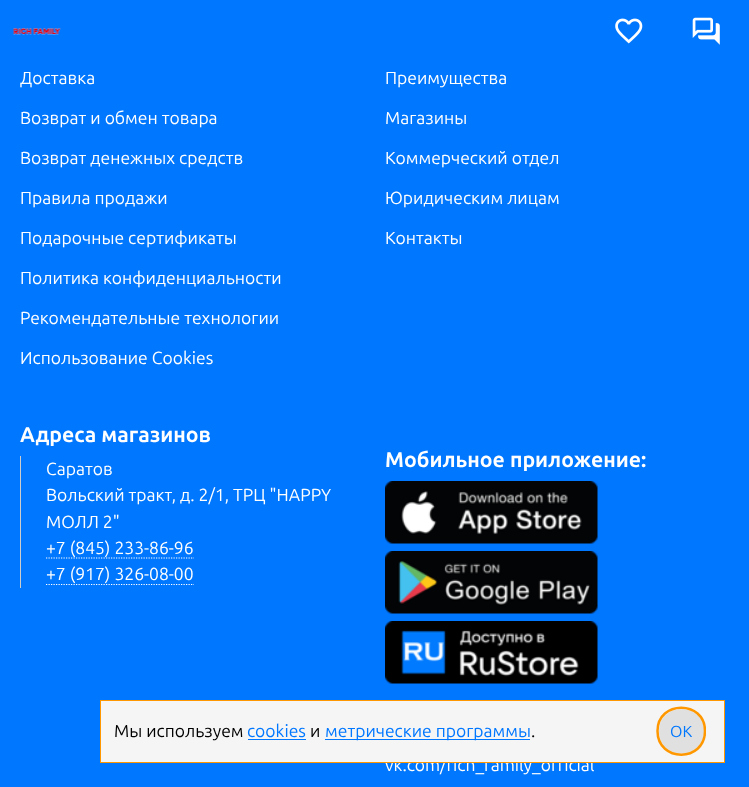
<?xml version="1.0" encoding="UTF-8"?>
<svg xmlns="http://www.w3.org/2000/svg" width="749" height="787">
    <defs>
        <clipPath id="clip1"><path d="M 656 756 V 706 H 706 V 756 Z"/></clipPath>
    </defs>
    <rect width="100%" height="100%" fill="#0077FF"/>
    <image x="13" y="28" width="48" height="7" href="img_01.png"/>
    <image x="615" y="18" width="28" height="26" href="img_02.png"/>
    <image x="692" y="17" width="28" height="28" href="img_03.png"/>
    <text x="20" y="84" font-family="Ubuntu" font-size="17.5" fill="#FFFFFF">Доставка</text>
    <text x="20" y="124" font-family="Ubuntu" font-size="17.5" fill="#FFFFFF">Возврат и обмен товара</text>
    <text x="20" y="164" font-family="Ubuntu" font-size="17.5" fill="#FFFFFF">Возврат денежных средств</text>
    <text x="20" y="204" font-family="Ubuntu" font-size="17.5" fill="#FFFFFF">Правила продажи</text>
    <text x="20" y="244" font-family="Ubuntu" font-size="17.5" fill="#FFFFFF">Подарочные сертификаты</text>
    <text x="20" y="284" font-family="Ubuntu" font-size="17.5" fill="#FFFFFF">Политика конфиденциальности</text>
    <text x="20" y="324" font-family="Ubuntu" font-size="17.5" fill="#FFFFFF">Рекомендательные технологии</text>
    <text x="20" y="364" font-family="Ubuntu" font-size="17.5" fill="#FFFFFF">Использование Cookies</text>
    <text x="385" y="84" font-family="Ubuntu" font-size="17.5" fill="#FFFFFF">Преимущества</text>
    <text x="385" y="124" font-family="Ubuntu" font-size="17.5" fill="#FFFFFF">Магазины</text>
    <text x="385" y="164" font-family="Ubuntu" font-size="17.5" fill="#FFFFFF">Коммерческий отдел</text>
    <text x="385" y="204" font-family="Ubuntu" font-size="17.5" fill="#FFFFFF">Юридическим лицам</text>
    <text x="385" y="244" font-family="Ubuntu" font-size="17.5" fill="#FFFFFF">Контакты</text>
    <text x="20" y="442" font-family="Ubuntu" font-size="21.25" font-weight="700" fill="#FFFFFF">Адреса магазинов</text>
    <rect x="20" y="456" width="1" height="132" fill="#CCCCCC"/>
    <text font-family="Ubuntu" font-size="17.5" fill="#FFFFFF">
        <tspan x="46" y="475">Саратов</tspan>
        <tspan x="46" y="501">Вольский тракт, д. 2/1, ТРЦ "HAPPY</tspan>
        <tspan x="46" y="528">МОЛЛ 2"</tspan>
    </text>
    <path d="M 46 558 H 194" fill="none" stroke="#FFFFFF" stroke-width="1.2" stroke-dasharray="1.25 1.25"/>
    <text x="46" y="554" font-family="Ubuntu" font-size="17.5" fill="#FFFFFF">+7 (845) 233-86-96</text>
    <path d="M 46 584.5 H 194" fill="none" stroke="#FFFFFF" stroke-width="1.2" stroke-dasharray="1.25 1.25"/>
    <text x="46" y="580" font-family="Ubuntu" font-size="17.5" fill="#FFFFFF">+7 (917) 326-08-00</text>
    <text x="385" y="467" font-family="Ubuntu" font-size="21.25" font-weight="700" fill="#FFFFFF">Мобильное приложение:</text>
    <image x="385" y="481" width="213" height="63" href="img_04.png"/>
    <image x="385" y="551" width="213" height="63" href="img_05.png"/>
    <image x="385" y="621" width="213" height="63" href="img_06.png"/>
    <text x="385" y="771" font-family="Ubuntu" font-size="17.5" fill="#FFFFFF">vk.com/rich_family_official</text>
    <rect x="100.5" y="700.5" width="624" height="62" fill="#F5F5F5" stroke="#FF9800"/>
    <text x="114" y="737" font-family="Ubuntu" font-size="17.5" fill="#000000">Мы используем</text>
    <text x="247" y="737" font-family="Ubuntu" font-size="17.5" fill="#0077FF">cookies</text>
    <rect x="248" y="739" width="58" height="1" fill="#0077FF"/>
    <text x="310" y="737" font-family="Ubuntu" font-size="17.5" fill="#000000">и</text>
    <rect x="325" y="739" width="205" height="1" fill="#0077FF"/>
    <text x="325" y="737" font-family="Ubuntu" font-size="17.5" fill="#0077FF">метрические программы</text>
    <text x="531" y="737" font-family="Ubuntu" font-size="17.5" fill="#000000">.</text>
    <path d="M 659 731 C 659 702 704 702 704 731 C 704 761 659 761 659 731 Z" fill="#E0E0E0"/>
    <g clip-path="url(#clip1)">
        <path d="M 657.5 731 C 657.5 700 705 700 705 731 C 705 762.5 657.5 762.5 657.5 731" fill="none" stroke="#FF9800" stroke-width="2.5"/>
    </g>
    <text x="670" y="737" font-family="Ubuntu" font-size="16" fill="#0077FF">OK</text>
</svg>
